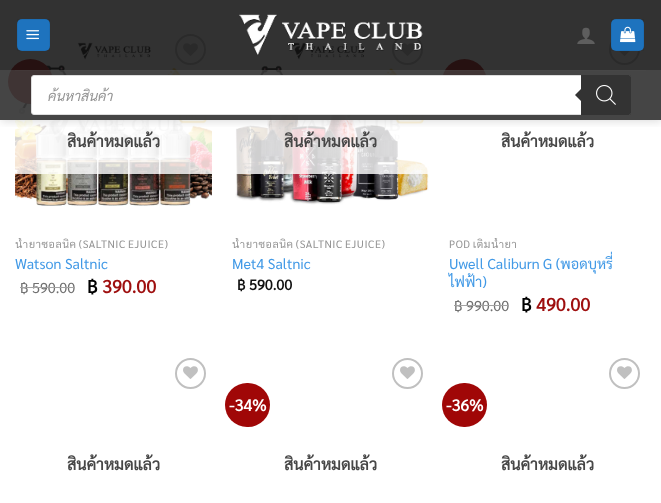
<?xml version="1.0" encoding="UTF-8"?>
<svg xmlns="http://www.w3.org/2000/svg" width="661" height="503">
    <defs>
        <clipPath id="clip1"><rect x="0" y="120" width="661" height="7"/></clipPath>
        <filter id="blur1" x="-50%" y="-200%" width="200%" height="500%"><feGaussianBlur stdDeviation="5"/></filter>
        <clipPath id="clip2"><rect x="47" y="86" width="568" height="18"/></clipPath>
        <clipPath id="clip3"><rect x="15" y="238" width="197" height="13"/></clipPath>
        <clipPath id="clip4"><rect x="232" y="238" width="197" height="13"/></clipPath>
        <clipPath id="clip5"><rect x="449" y="238" width="197" height="13"/></clipPath>
    </defs>
    <rect width="100%" height="100%" fill="#FFFFFF"/>
    <image x="15" y="42" width="197" height="164" href="img_07.png"/>
    <circle cx="30.5" cy="81.5" r="22.5" fill="#A00707"/>
    <circle cx="190.5" cy="49.5" r="14.5" fill="none" stroke="#C0C0C0" stroke-width="2"/>
    <image x="183" y="43" width="15" height="13" href="img_06.png"/>
    <rect x="15" y="108" width="197" height="66" fill="#FFFFFF" fill-opacity="0.81"/>
    <image x="235" y="42" width="194" height="163" href="img_08.png"/>
    <circle cx="407.5" cy="49.5" r="14.5" fill="none" stroke="#C0C0C0" stroke-width="2"/>
    <image x="400" y="43" width="15" height="13" href="img_06.png"/>
    <rect x="235" y="115" width="194" height="59" fill="#FFFFFF" fill-opacity="0.81"/>
    <circle cx="464.5" cy="81.5" r="22.5" fill="#A00707"/>
    <circle cx="624.5" cy="49.5" r="14.5" fill="none" stroke="#C0C0C0" stroke-width="2"/>
    <image x="619" y="51" width="11" height="5" href="img_09.png"/>
    <g clip-path="url(#clip1)">
        <rect x="1" y="1" width="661" height="120" fill="#000000" fill-opacity="0.15" filter="url(#blur1)"/>
    </g>
    <rect x="0" y="0" width="661" height="120" fill="#141414" fill-opacity="0.87"/>
    <rect x="17" y="19" width="33" height="32" rx="5" fill="#1E73BE"/>
    <rect x="17.5" y="19.5" width="32" height="31" fill="none" stroke="#000000" stroke-opacity="0.05"/>
    <image x="26" y="30" width="13" height="10" href="img_01.png"/>
    <image x="239" y="14" width="184" height="41" href="img_02.png"/>
    <image x="577" y="27" width="18" height="17" href="img_03.png"/>
    <rect x="611" y="19" width="33" height="32" rx="5" fill="#1E73BE"/>
    <rect x="611.5" y="19.5" width="32" height="31" fill="none" stroke="#000000" stroke-opacity="0.05"/>
    <image x="620" y="26" width="16" height="17" href="img_04.png"/>
    <rect x="0" y="70" width="661" height="50" fill="#5B5B5B" fill-opacity="0.47"/>
    <rect x="15" y="70" width="631" height="1" fill="#666666" fill-opacity="0.1"/>
    <rect x="31.5" y="75.5" width="599" height="39" rx="2.5" fill="#FFFFFF" stroke="#DDDDDD"/>
    <g clip-path="url(#clip2)">
        <text x="47" y="101" font-family="Sarabun" font-size="14" font-style="italic" fill="#949494">ค้นหาสินค้า</text>
    </g>
    <path d="M 581 75 H 629 C 630 75 631 76 631 77 V 113 C 631 114 630 115 629 115 H 581 Z" fill="#333333"/>
    <path d="M 583 87 V 103 L 575 95 Z" fill="#333333"/>
    <image x="596" y="85" width="20" height="20" href="img_05.png"/>
    <text x="67" y="147" font-family="Sarabun" font-size="16" font-weight="700" fill="#474747">สินค้าหมดแล้ว</text>
    <g clip-path="url(#clip3)">
        <text x="15" y="248" word-spacing="-1" font-family="Sarabun" font-size="10.75" letter-spacing="0.55" fill="#949494">น้ำยาซอลนิค (SALTNIC EJUICE)</text>
    </g>
    <text x="15" y="269" font-family="Sarabun" font-size="14.4" fill="#4199E6">Watson Saltnic</text>
    <text x="20" y="293" font-family="Sarabun" font-size="14.4" fill="#707070">฿ 590.00</text>
    <rect x="20" y="287" width="55" height="1" fill="#A3A3A3"/>
    <text x="87" y="293" font-family="Sarabun" font-size="18" font-weight="700" fill="#000000">฿</text>
    <text x="102" y="293" font-family="Sarabun" font-size="18" font-weight="700" fill="#9E0E0E">390.00</text>
    <text x="284" y="147" font-family="Sarabun" font-size="16" font-weight="700" fill="#474747">สินค้าหมดแล้ว</text>
    <g clip-path="url(#clip4)">
        <text x="232" y="248" word-spacing="-1" font-family="Sarabun" font-size="10.75" letter-spacing="0.55" fill="#949494">น้ำยาซอลนิค (SALTNIC EJUICE)</text>
    </g>
    <text x="232" y="269" font-family="Sarabun" font-size="14.4" fill="#4199E6">Met4 Saltnic</text>
    <text x="237" y="290" font-family="Sarabun" font-size="14.4" font-weight="700" fill="#111111">฿ 590.00</text>
    <text x="501" y="147" font-family="Sarabun" font-size="16" font-weight="700" fill="#474747">สินค้าหมดแล้ว</text>
    <g clip-path="url(#clip5)">
        <text x="449" y="248" word-spacing="-1" font-family="Sarabun" font-size="10.75" letter-spacing="0.55" fill="#949494">POD เติมน้ำยา</text>
    </g>
    <text font-family="Sarabun" font-size="14.4" fill="#4199E6">
        <tspan x="449" y="269">Uwell Caliburn G (พอดบุหรี่</tspan>
        <tspan x="449" y="287">ไฟฟ้า)</tspan>
    </text>
    <text x="454" y="311" font-family="Sarabun" font-size="14.4" fill="#707070">฿ 990.00</text>
    <rect x="454" y="305" width="55" height="1" fill="#A3A3A3"/>
    <text x="521" y="311" font-family="Sarabun" font-size="18" font-weight="700" fill="#000000">฿</text>
    <text x="536" y="311" font-family="Sarabun" font-size="18" font-weight="700" fill="#9E0E0E">490.00</text>
    <circle cx="190.5" cy="373.5" r="14.5" fill="none" stroke="#C0C0C0" stroke-width="2"/>
    <image x="183" y="366" width="15" height="13" href="img_06.png"/>
    <text x="67" y="470" font-family="Sarabun" font-size="16" font-weight="700" fill="#474747">สินค้าหมดแล้ว</text>
    <rect x="225" y="383" width="45" height="44" rx="22" fill="#A00707"/>
    <text x="229" y="411" font-family="Sarabun" font-size="16" font-weight="700" fill="#FFFFFF">-34%</text>
    <circle cx="407.5" cy="373.5" r="14.5" fill="none" stroke="#C0C0C0" stroke-width="2"/>
    <image x="400" y="366" width="15" height="13" href="img_06.png"/>
    <text x="284" y="470" font-family="Sarabun" font-size="16" font-weight="700" fill="#474747">สินค้าหมดแล้ว</text>
    <rect x="442" y="383" width="45" height="44" rx="22" fill="#A00707"/>
    <text x="446" y="411" font-family="Sarabun" font-size="16" font-weight="700" fill="#FFFFFF">-36%</text>
    <circle cx="624.5" cy="373.5" r="14.5" fill="none" stroke="#C0C0C0" stroke-width="2"/>
    <image x="617" y="366" width="15" height="13" href="img_06.png"/>
    <text x="501" y="470" font-family="Sarabun" font-size="16" font-weight="700" fill="#474747">สินค้าหมดแล้ว</text>
</svg>
